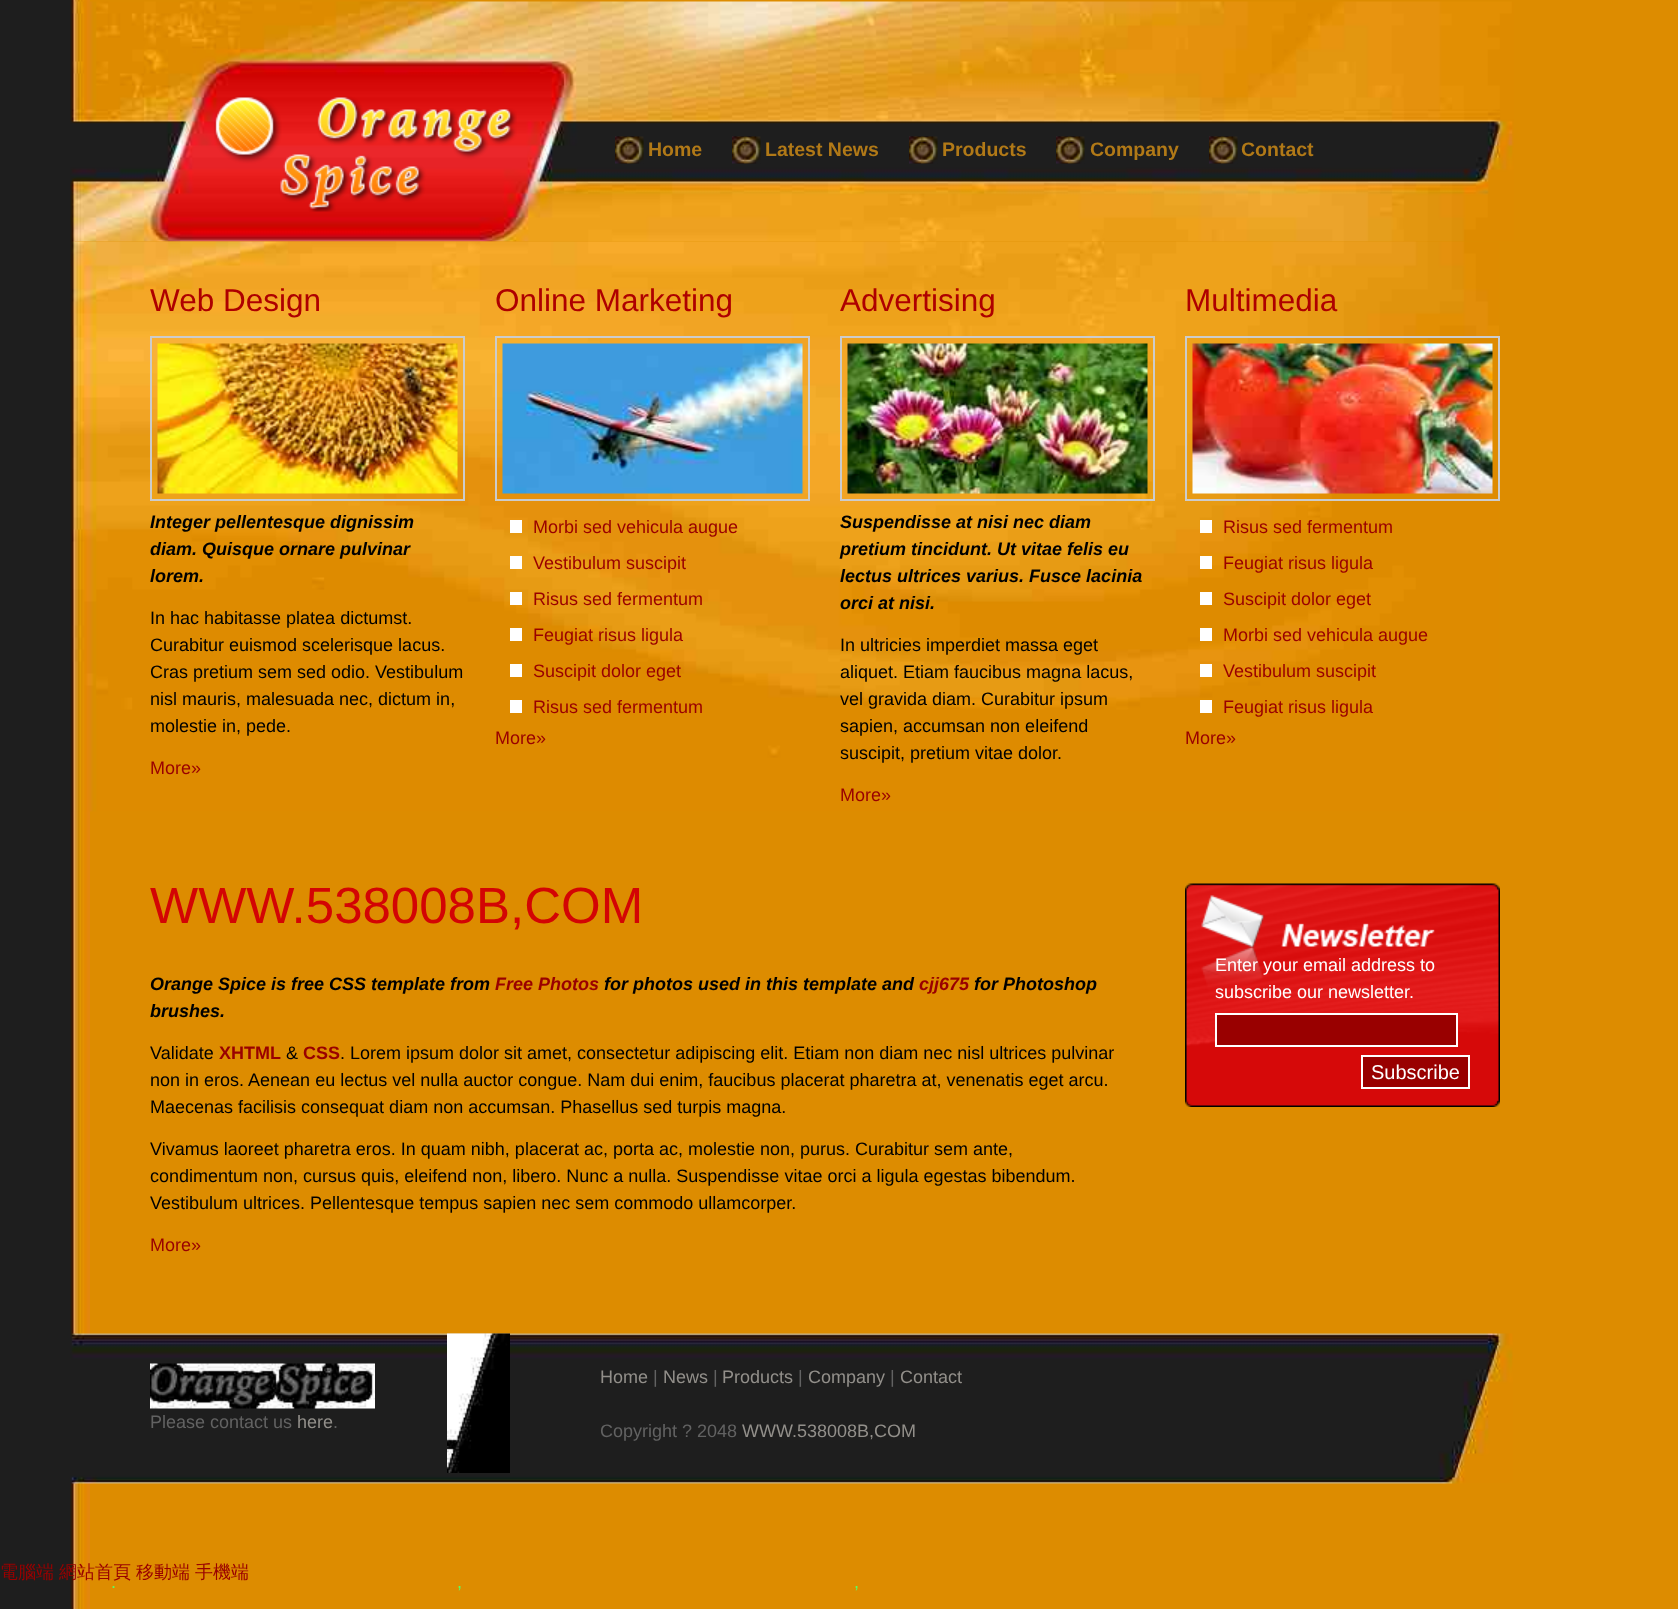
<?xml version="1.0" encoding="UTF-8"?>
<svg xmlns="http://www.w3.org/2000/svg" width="1678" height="1609">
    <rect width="100%" height="100%" fill="#DD8C00"/>
    <image x="0" y="0" width="90" height="1609" href="img_01.png"/>
    <image x="70" y="1" width="1444" height="241" href="img_02.png"/>
    <image x="214" y="95" width="303" height="117" href="img_03.png"/>
    <image x="615" y="136" width="29" height="28" href="img_04.png"/>
    <text x="648" y="156" font-family="Liberation Sans" font-size="19.5" font-weight="700" fill="#B17917">Home</text>
    <image x="732" y="136" width="29" height="28" href="img_05.png"/>
    <text x="765" y="156" font-family="Liberation Sans" font-size="19.5" font-weight="700" fill="#B17917">Latest News</text>
    <image x="909" y="136" width="29" height="28" href="img_04.png"/>
    <text x="942" y="156" font-family="Liberation Sans" font-size="19.5" font-weight="700" fill="#B17917">Products</text>
    <image x="1056" y="136" width="29" height="28" href="img_05.png"/>
    <text x="1090" y="156" font-family="Liberation Sans" font-size="19.5" font-weight="700" fill="#B17917">Company</text>
    <image x="1209" y="136" width="29" height="28" href="img_05.png"/>
    <text x="1241" y="156" font-family="Liberation Sans" font-size="19.5" font-weight="700" fill="#B17917">Contact</text>
    <image x="71" y="241" width="1428" height="571" href="img_06.png"/>
    <text x="150" y="311" font-family="Liberation Sans" font-size="31.5" fill="#AE0000">Web Design</text>
    <rect x="151" y="337" width="313" height="163" fill="none" stroke="#CCCCCC" stroke-width="2"/>
    <image x="157" y="343" width="301" height="151" href="img_07.png"/>
    <text font-family="Liberation Sans" font-size="18" font-weight="700" font-style="italic" fill="#000000">
        <tspan x="150" y="528">Integer pellentesque dignissim</tspan>
        <tspan x="150" y="555">diam. Quisque ornare pulvinar</tspan>
        <tspan x="150" y="582">lorem.</tspan>
    </text>
    <text font-family="Liberation Sans" font-size="18" fill="#000000">
        <tspan x="150" y="624">In hac habitasse platea dictumst.</tspan>
        <tspan x="150" y="651">Curabitur euismod scelerisque lacus.</tspan>
        <tspan x="150" y="678">Cras pretium sem sed odio. Vestibulum</tspan>
        <tspan x="150" y="705">nisl mauris, malesuada nec, dictum in,</tspan>
        <tspan x="150" y="732">molestie in, pede.</tspan>
    </text>
    <text x="150" y="774" font-family="Liberation Sans" font-size="18" fill="#990000">More»</text>
    <text x="495" y="311" font-family="Liberation Sans" font-size="31.5" fill="#AE0000">Online Marketing</text>
    <rect x="496" y="337" width="313" height="163" fill="none" stroke="#CCCCCC" stroke-width="2"/>
    <image x="502" y="343" width="301" height="151" href="img_08.png"/>
    <rect x="510" y="520" width="12" height="13" fill="#FFFFFF"/>
    <text x="533" y="533" font-family="Liberation Sans" font-size="18" fill="#990000">Morbi sed vehicula augue</text>
    <rect x="510" y="556" width="12" height="13" fill="#FFFFFF"/>
    <text x="533" y="569" font-family="Liberation Sans" font-size="18" fill="#990000">Vestibulum suscipit</text>
    <rect x="510" y="592" width="12" height="13" fill="#FFFFFF"/>
    <text x="533" y="605" font-family="Liberation Sans" font-size="18" fill="#990000">Risus sed fermentum</text>
    <rect x="510" y="628" width="12" height="13" fill="#FFFFFF"/>
    <text x="533" y="641" font-family="Liberation Sans" font-size="18" fill="#990000">Feugiat risus ligula</text>
    <rect x="510" y="664" width="12" height="13" fill="#FFFFFF"/>
    <text x="533" y="677" font-family="Liberation Sans" font-size="18" fill="#990000">Suscipit dolor eget</text>
    <rect x="510" y="700" width="12" height="13" fill="#FFFFFF"/>
    <text x="533" y="713" font-family="Liberation Sans" font-size="18" fill="#990000">Risus sed fermentum</text>
    <text x="495" y="744" font-family="Liberation Sans" font-size="18" fill="#990000">More»</text>
    <text x="840" y="311" font-family="Liberation Sans" font-size="31.5" fill="#AE0000">Advertising</text>
    <rect x="841" y="337" width="313" height="163" fill="none" stroke="#CCCCCC" stroke-width="2"/>
    <image x="847" y="343" width="301" height="151" href="img_09.png"/>
    <text font-family="Liberation Sans" font-size="18" font-weight="700" font-style="italic" fill="#000000">
        <tspan x="840" y="528">Suspendisse at nisi nec diam</tspan>
        <tspan x="840" y="555">pretium tincidunt. Ut vitae felis eu</tspan>
        <tspan x="840" y="582">lectus ultrices varius. Fusce lacinia</tspan>
        <tspan x="840" y="609">orci at nisi.</tspan>
    </text>
    <text font-family="Liberation Sans" font-size="18" fill="#000000">
        <tspan x="840" y="651">In ultricies imperdiet massa eget</tspan>
        <tspan x="840" y="678">aliquet. Etiam faucibus magna lacus,</tspan>
        <tspan x="840" y="705">vel gravida diam. Curabitur ipsum</tspan>
        <tspan x="840" y="732">sapien, accumsan non eleifend</tspan>
        <tspan x="840" y="759">suscipit, pretium vitae dolor.</tspan>
    </text>
    <text x="840" y="801" font-family="Liberation Sans" font-size="18" fill="#990000">More»</text>
    <text x="1185" y="311" font-family="Liberation Sans" font-size="31.5" fill="#AE0000">Multimedia</text>
    <rect x="1186" y="337" width="313" height="163" fill="none" stroke="#CCCCCC" stroke-width="2"/>
    <image x="1192" y="343" width="301" height="151" href="img_10.png"/>
    <rect x="1200" y="520" width="12" height="13" fill="#FFFFFF"/>
    <text x="1223" y="533" font-family="Liberation Sans" font-size="18" fill="#990000">Risus sed fermentum</text>
    <rect x="1200" y="556" width="12" height="13" fill="#FFFFFF"/>
    <text x="1223" y="569" font-family="Liberation Sans" font-size="18" fill="#990000">Feugiat risus ligula</text>
    <rect x="1200" y="592" width="12" height="13" fill="#FFFFFF"/>
    <text x="1223" y="605" font-family="Liberation Sans" font-size="18" fill="#990000">Suscipit dolor eget</text>
    <rect x="1200" y="628" width="12" height="13" fill="#FFFFFF"/>
    <text x="1223" y="641" font-family="Liberation Sans" font-size="18" fill="#990000">Morbi sed vehicula augue</text>
    <rect x="1200" y="664" width="12" height="13" fill="#FFFFFF"/>
    <text x="1223" y="677" font-family="Liberation Sans" font-size="18" fill="#990000">Vestibulum suscipit</text>
    <rect x="1200" y="700" width="12" height="13" fill="#FFFFFF"/>
    <text x="1223" y="713" font-family="Liberation Sans" font-size="18" fill="#990000">Feugiat risus ligula</text>
    <text x="1185" y="744" font-family="Liberation Sans" font-size="18" fill="#990000">More»</text>
    <text x="150" y="923" font-family="Liberation Sans" font-size="51" fill="#D30404">WWW.538008B,COM</text>
    <text x="150" y="990" font-family="Liberation Sans" font-size="18" font-weight="700" font-style="italic" fill="#000000">Orange Spice is free CSS template from</text>
    <text x="495" y="990" font-family="Liberation Sans" font-size="18" font-weight="700" font-style="italic" fill="#990000">Free Photos</text>
    <text x="604" y="990" font-family="Liberation Sans" font-size="18" font-weight="700" font-style="italic" fill="#000000">for photos used in this template and</text>
    <text x="919" y="990" font-family="Liberation Sans" font-size="18" font-weight="700" font-style="italic" fill="#990000">cjj675</text>
    <text x="974" y="990" font-family="Liberation Sans" font-size="18" font-weight="700" font-style="italic" fill="#000000">for Photoshop</text>
    <text x="150" y="1017" font-family="Liberation Sans" font-size="18" font-weight="700" font-style="italic" fill="#000000">brushes.</text>
    <text x="150" y="1059" font-family="Liberation Sans" font-size="18" fill="#000000">Validate</text>
    <text x="219" y="1059" font-family="Liberation Sans" font-size="18" font-weight="700" fill="#990000">XHTML</text>
    <text x="286" y="1059" font-family="Liberation Sans" font-size="18" fill="#000000">&amp;</text>
    <text x="303" y="1059" font-family="Liberation Sans" font-size="18" font-weight="700" fill="#990000">CSS</text>
    <text x="340" y="1059" font-family="Liberation Sans" font-size="18" fill="#000000">. Lorem ipsum dolor sit amet, consectetur adipiscing elit. Etiam non diam nec nisl ultrices pulvinar</text>
    <text font-family="Liberation Sans" font-size="18" fill="#000000">
        <tspan x="150" y="1086">non in eros. Aenean eu lectus vel nulla auctor congue. Nam dui enim, faucibus placerat pharetra at, venenatis eget arcu.</tspan>
        <tspan x="150" y="1113">Maecenas facilisis consequat diam non accumsan. Phasellus sed turpis magna.</tspan>
    </text>
    <text font-family="Liberation Sans" font-size="18" fill="#000000">
        <tspan x="150" y="1155">Vivamus laoreet pharetra eros. In quam nibh, placerat ac, porta ac, molestie non, purus. Curabitur sem ante,</tspan>
        <tspan x="150" y="1182">condimentum non, cursus quis, eleifend non, libero. Nunc a nulla. Suspendisse vitae orci a ligula egestas bibendum.</tspan>
        <tspan x="150" y="1209">Vestibulum ultrices. Pellentesque tempus sapien nec sem commodo ullamcorper.</tspan>
    </text>
    <text x="150" y="1251" font-family="Liberation Sans" font-size="18" fill="#990000">More»</text>
    <image x="1185" y="883" width="315" height="224" href="img_11.png"/>
    <text font-family="Liberation Sans" font-size="18" fill="#FFFFFF">
        <tspan x="1215" y="971">Enter your email address to</tspan>
        <tspan x="1215" y="998">subscribe our newsletter.</tspan>
    </text>
    <rect x="1216" y="1014" width="241" height="32" fill="#990000" stroke="#FFFFFF" stroke-width="2"/>
    <rect x="1362" y="1056" width="107" height="32" fill="#990000" stroke="#FFFFFF" stroke-width="2"/>
    <text x="1371" y="1079" font-family="Liberation Sans" font-size="20" fill="#FFFFFF">Subscribe</text>
    <image x="70" y="1333" width="1443" height="151" href="img_12.png"/>
    <image x="447" y="1333" width="63" height="140" href="img_13.png"/>
    <image x="150" y="1363" width="225" height="46" href="img_14.png"/>
    <text x="150" y="1428" font-family="Liberation Sans" font-size="18" fill="#626262">Please contact us</text>
    <text x="297" y="1428" font-family="Liberation Sans" font-size="18" fill="#928F8A">here</text>
    <text x="333" y="1428" font-family="Liberation Sans" font-size="18" fill="#626262">.</text>
    <text x="600" y="1383" font-family="Liberation Sans" font-size="18" fill="#928F8A">Home</text>
    <text x="653" y="1383" font-family="Liberation Sans" font-size="18" fill="#626262">|</text>
    <text x="663" y="1383" font-family="Liberation Sans" font-size="18" fill="#928F8A">News</text>
    <text x="713" y="1383" font-family="Liberation Sans" font-size="18" fill="#626262">|</text>
    <text x="722" y="1383" font-family="Liberation Sans" font-size="18" fill="#928F8A">Products</text>
    <text x="798" y="1383" font-family="Liberation Sans" font-size="18" fill="#626262">|</text>
    <text x="808" y="1383" font-family="Liberation Sans" font-size="18" fill="#928F8A">Company</text>
    <text x="890" y="1383" font-family="Liberation Sans" font-size="18" fill="#626262">|</text>
    <text x="900" y="1383" font-family="Liberation Sans" font-size="18" fill="#928F8A">Contact</text>
    <text x="600" y="1437" font-family="Liberation Sans" font-size="18" fill="#626262">Copyright ? 2048</text>
    <text x="742" y="1437" font-family="Liberation Sans" font-size="18" fill="#928F8A">WWW.538008B,COM</text>
    <text x="0" y="1578" font-family="WenQuanYi Zen Hei" font-size="18" font-weight="500" fill="#990000">電腦端</text>
    <text x="59" y="1578" font-family="WenQuanYi Zen Hei" font-size="18" font-weight="500" fill="#990000">網站首頁</text>
    <text x="136" y="1578" font-family="WenQuanYi Zen Hei" font-size="18" font-weight="500" fill="#990000">移動端</text>
    <text x="195" y="1578" font-family="WenQuanYi Zen Hei" font-size="18" font-weight="500" fill="#990000">手機端</text>
    <text x="111" y="1588" font-family="Liberation Sans" font-size="18" fill="#5AFF63">.</text>
    <text x="457" y="1588" font-family="Liberation Sans" font-size="18" fill="#5AFF63">,</text>
    <text x="854" y="1588" font-family="Liberation Sans" font-size="18" fill="#5AFF63">,</text>
</svg>
